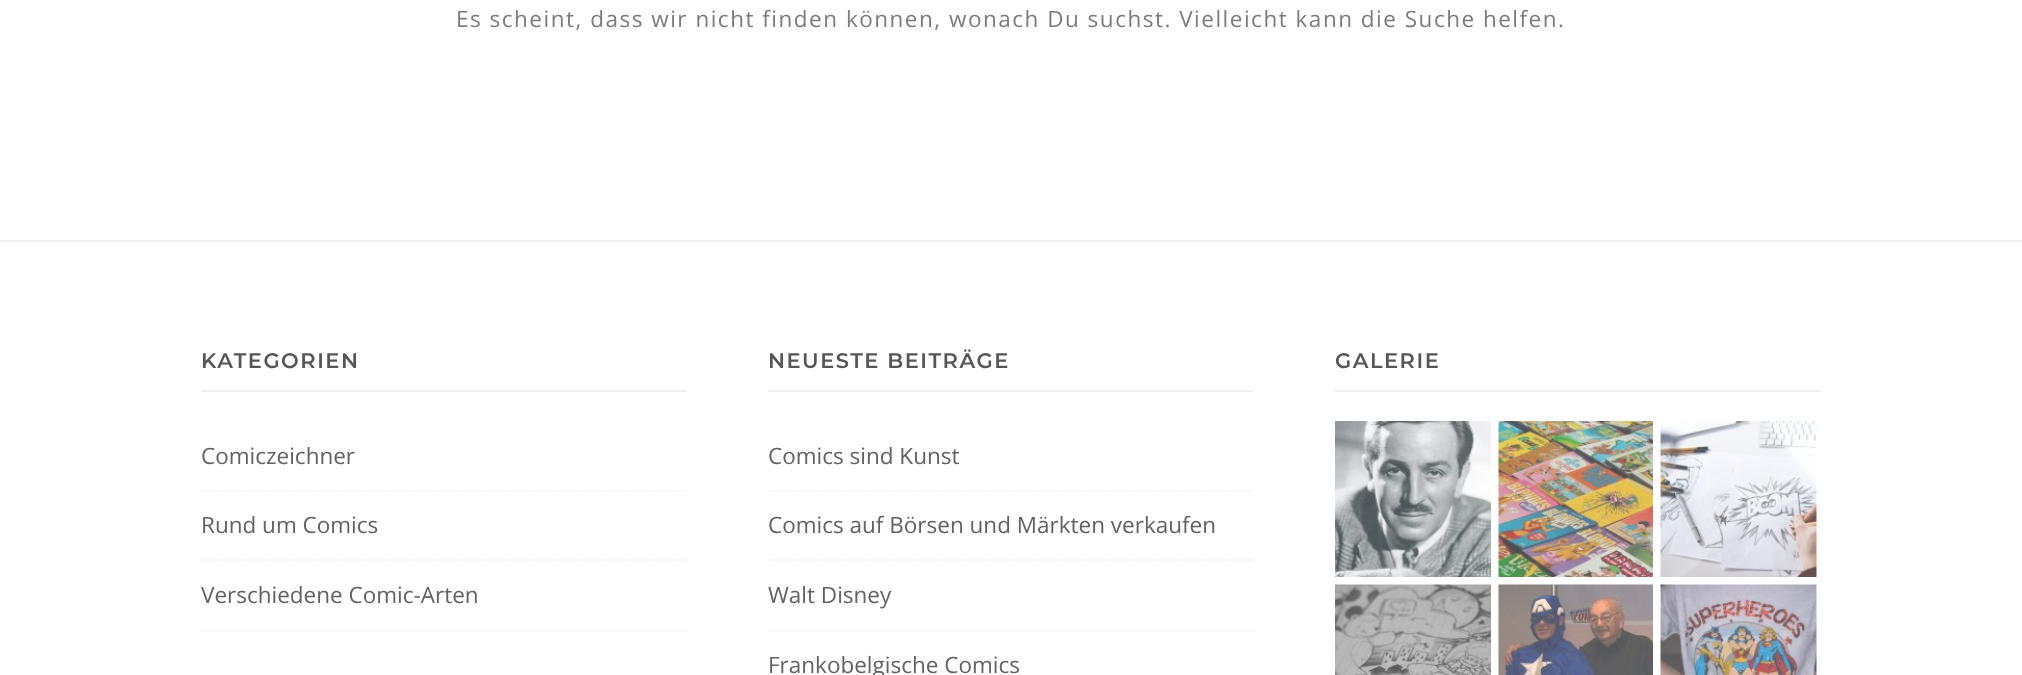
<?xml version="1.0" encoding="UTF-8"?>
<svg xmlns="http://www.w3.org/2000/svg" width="2022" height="675">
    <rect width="100%" height="100%" fill="#FFFFFF"/>
    <text x="456" y="27" font-family="Open Sans" font-size="22.5" letter-spacing="1.5" fill="#7C7C7C">Es scheint, dass wir nicht finden können, wonach Du suchst. Vielleicht kann die Suche helfen.</text>
    <rect x="0" y="240" width="2022" height="2" fill="#EFEFEF"/>
    <rect x="201" y="390" width="486" height="2" fill="#EFEFEF"/>
    <text x="201" y="368" font-family="Montserrat" font-size="21" font-weight="600" letter-spacing="1.5" fill="#565656">KATEGORIEN</text>
    <path d="M 201 491 H 687" fill="none" stroke="#EFEFEF" stroke-width="1.5" stroke-dasharray="1.5 1.5"/>
    <text x="201" y="464" font-family="Open Sans" font-size="22.5" fill="#626262">Comiczeichner</text>
    <path d="M 201 560 H 687" fill="none" stroke="#EFEFEF" stroke-width="1.5" stroke-dasharray="1.5 1.5"/>
    <text x="201" y="533" font-family="Open Sans" font-size="22.5" fill="#626262">Rund um Comics</text>
    <path d="M 201 631 H 687" fill="none" stroke="#EFEFEF" stroke-width="1.5" stroke-dasharray="1.5 1.5"/>
    <text x="201" y="603" font-family="Open Sans" font-size="22.5" fill="#626262">Verschiedene Comic-Arten</text>
    <rect x="768" y="390" width="486" height="2" fill="#EFEFEF"/>
    <text x="768" y="368" font-family="Montserrat" font-size="21" font-weight="600" letter-spacing="1.5" fill="#565656">NEUESTE BEITRÄGE</text>
    <path d="M 768 491 H 1254" fill="none" stroke="#EFEFEF" stroke-width="1.5" stroke-dasharray="1.5 1.5"/>
    <text x="768" y="464" font-family="Open Sans" font-size="22.5" fill="#626262">Comics sind Kunst</text>
    <path d="M 768 560 H 1254" fill="none" stroke="#EFEFEF" stroke-width="1.5" stroke-dasharray="1.5 1.5"/>
    <text x="768" y="533" font-family="Open Sans" font-size="22.5" fill="#626262">Comics auf Börsen und Märkten verkaufen</text>
    <path d="M 768 631 H 1254" fill="none" stroke="#EFEFEF" stroke-width="1.5" stroke-dasharray="1.5 1.5"/>
    <text x="768" y="603" font-family="Open Sans" font-size="22.5" fill="#626262">Walt Disney</text>
    <text x="768" y="673" font-family="Open Sans" font-size="22.5" fill="#626262">Frankobelgische Comics</text>
    <rect x="1335" y="390" width="486" height="2" fill="#EFEFEF"/>
    <text x="1335" y="368" font-family="Montserrat" font-size="21" font-weight="600" letter-spacing="1.5" fill="#565656">GALERIE</text>
    <image x="1335" y="421" width="156" height="156" href="img_01.png"/>
    <image x="1498" y="421" width="155" height="156" href="img_02.png"/>
    <image x="1660" y="421" width="157" height="156" href="img_03.png"/>
    <image x="1335" y="584" width="156" height="91" href="img_04.png"/>
    <image x="1498" y="584" width="155" height="91" href="img_05.png"/>
    <image x="1660" y="584" width="157" height="91" href="img_06.png"/>
</svg>
